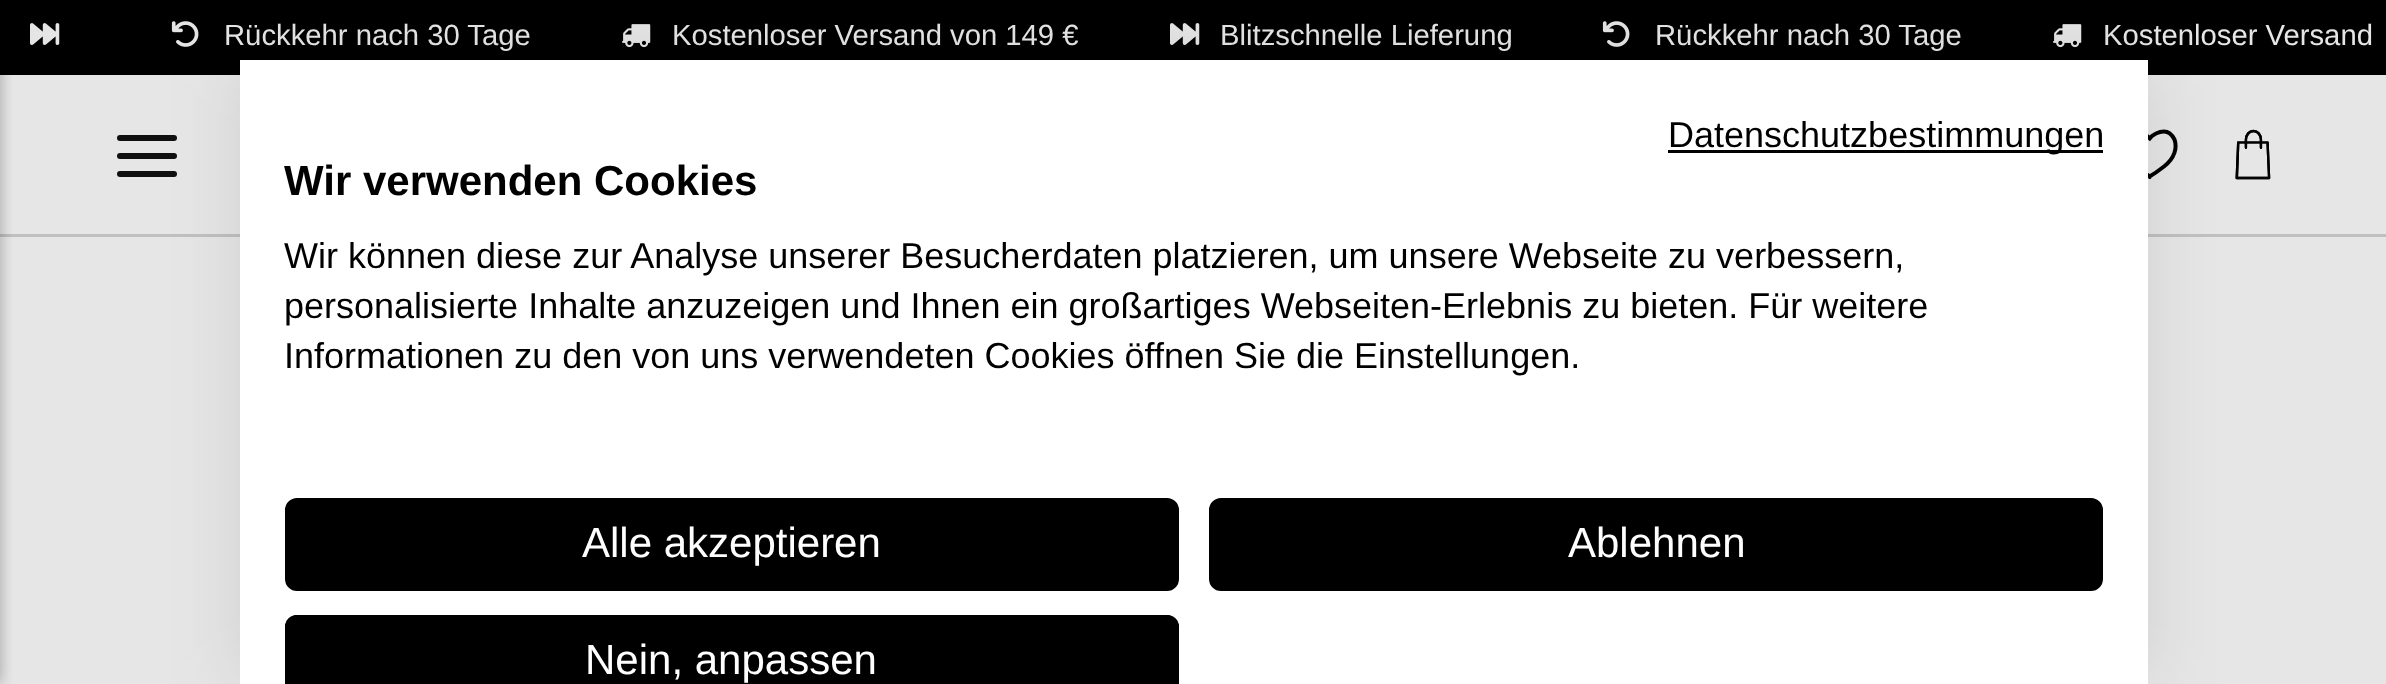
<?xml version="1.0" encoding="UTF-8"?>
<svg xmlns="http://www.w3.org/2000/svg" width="2386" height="684">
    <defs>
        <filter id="blur1" x="-50%" y="-200%" width="200%" height="500%"><feGaussianBlur stdDeviation="7.5"/></filter>
        <filter id="blur2" x="-50%" y="-200%" width="200%" height="500%"><feGaussianBlur stdDeviation="36"/></filter>
    </defs>
    <rect width="100%" height="100%" fill="#E6E6E6"/>
    <rect x="0" y="0" width="2386" height="75" fill="#000000"/>
    <rect x="0" y="234" width="2386" height="3" fill="#C0C0C0"/>
    <rect x="-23" y="0" width="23" height="684" fill="#000000" fill-opacity="0.3" filter="url(#blur1)"/>
    <image x="30" y="23" width="30" height="22" href="img_01.png"/>
    <image x="171" y="21" width="28" height="26" href="img_02.png"/>
    <text x="224" y="45" font-family="Liberation Sans" font-size="29.25" fill="#E6E6E6">Rückkehr nach 30 Tage</text>
    <image x="622" y="24" width="29" height="24" href="img_03.png"/>
    <text x="672" y="45" font-family="Liberation Sans" font-size="29.25" fill="#E6E6E6">Kostenloser Versand von 149 €</text>
    <image x="1170" y="23" width="30" height="22" href="img_01.png"/>
    <text x="1220" y="45" font-family="Liberation Sans" font-size="29.25" fill="#E6E6E6">Blitzschnelle Lieferung</text>
    <image x="1602" y="21" width="28" height="26" href="img_02.png"/>
    <text x="1655" y="45" font-family="Liberation Sans" font-size="29.25" fill="#E6E6E6">Rückkehr nach 30 Tage</text>
    <image x="2053" y="24" width="29" height="24" href="img_03.png"/>
    <text x="2103" y="45" font-family="Liberation Sans" font-size="29.25" fill="#E6E6E6">Kostenloser Versand</text>
    <rect x="117" y="135" width="60" height="6" rx="3" fill="#0F0F0F"/>
    <rect x="117" y="153" width="60" height="6" rx="3" fill="#0F0F0F"/>
    <rect x="117" y="171" width="60" height="6" rx="3" fill="#0F0F0F"/>
    <path d="M 2148 139.5 C 2153 134.5 2158.5 131.5 2164 131.5 C 2169.5 131.5 2172 134.5 2174.5 139.5 C 2177.5 148 2174.5 158.5 2164 166.5 C 2157 172 2151.5 175.5 2148 177.5 M 2151.5 139.5 C 2146 134.5 2140.5 131.5 2135.5 131.5 C 2130 131.5 2127.5 134.5 2124.5 139.5 C 2122 148 2124.5 158.5 2135.5 166.5 C 2142.5 172 2148 175.5 2151.5 177.5" fill="none" stroke="#000000" stroke-width="4"/>
    <image x="2235" y="129" width="36" height="51" href="img_04.png"/>
    <rect x="240" y="60" width="1908" height="624" fill="#000000" fill-opacity="0.1" filter="url(#blur2)"/>
    <rect x="240" y="60" width="1908" height="624" fill="#FFFFFF"/>
    <rect x="1668" y="150" width="435" height="3" fill="#000000"/>
    <text x="1668" y="147" font-family="Liberation Sans" font-size="36" fill="#000000">Datenschutzbestimmungen</text>
    <text x="284" y="195" font-family="Liberation Sans" font-size="42" font-weight="700" fill="#000000">Wir verwenden Cookies</text>
    <text font-family="Liberation Sans" font-size="36" fill="#000000">
        <tspan x="284" y="268">Wir können diese zur Analyse unserer Besucherdaten platzieren, um unsere Webseite zu verbessern,</tspan>
        <tspan x="284" y="318">personalisierte Inhalte anzuzeigen und Ihnen ein großartiges Webseiten-Erlebnis zu bieten. Für weitere</tspan>
        <tspan x="284" y="368">Informationen zu den von uns verwendeten Cookies öffnen Sie die Einstellungen.</tspan>
    </text>
    <rect x="286.5" y="499.5" width="891" height="90" rx="10.5" fill="#000000" stroke="#000000" stroke-width="3"/>
    <text x="582" y="557" font-family="Liberation Sans" font-size="42" fill="#FFFFFF">Alle akzeptieren</text>
    <rect x="1210.5" y="499.5" width="891" height="90" rx="10.5" fill="#000000" stroke="#000000" stroke-width="3"/>
    <text x="1568" y="557" font-family="Liberation Sans" font-size="42" fill="#FFFFFF">Ablehnen</text>
    <path d="M 297 615 H 1167 C 1173.5 615 1179 620.5 1179 627 V 684 H 285 V 627 C 285 620.5 290.5 615 297 615 Z" fill="#000000"/>
    <rect x="286.5" y="616.5" width="891" height="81" rx="10.5" fill="none" stroke="#000000" stroke-width="3"/>
    <text x="585" y="674" font-family="Liberation Sans" font-size="42" fill="#FFFFFF">Nein, anpassen</text>
</svg>
